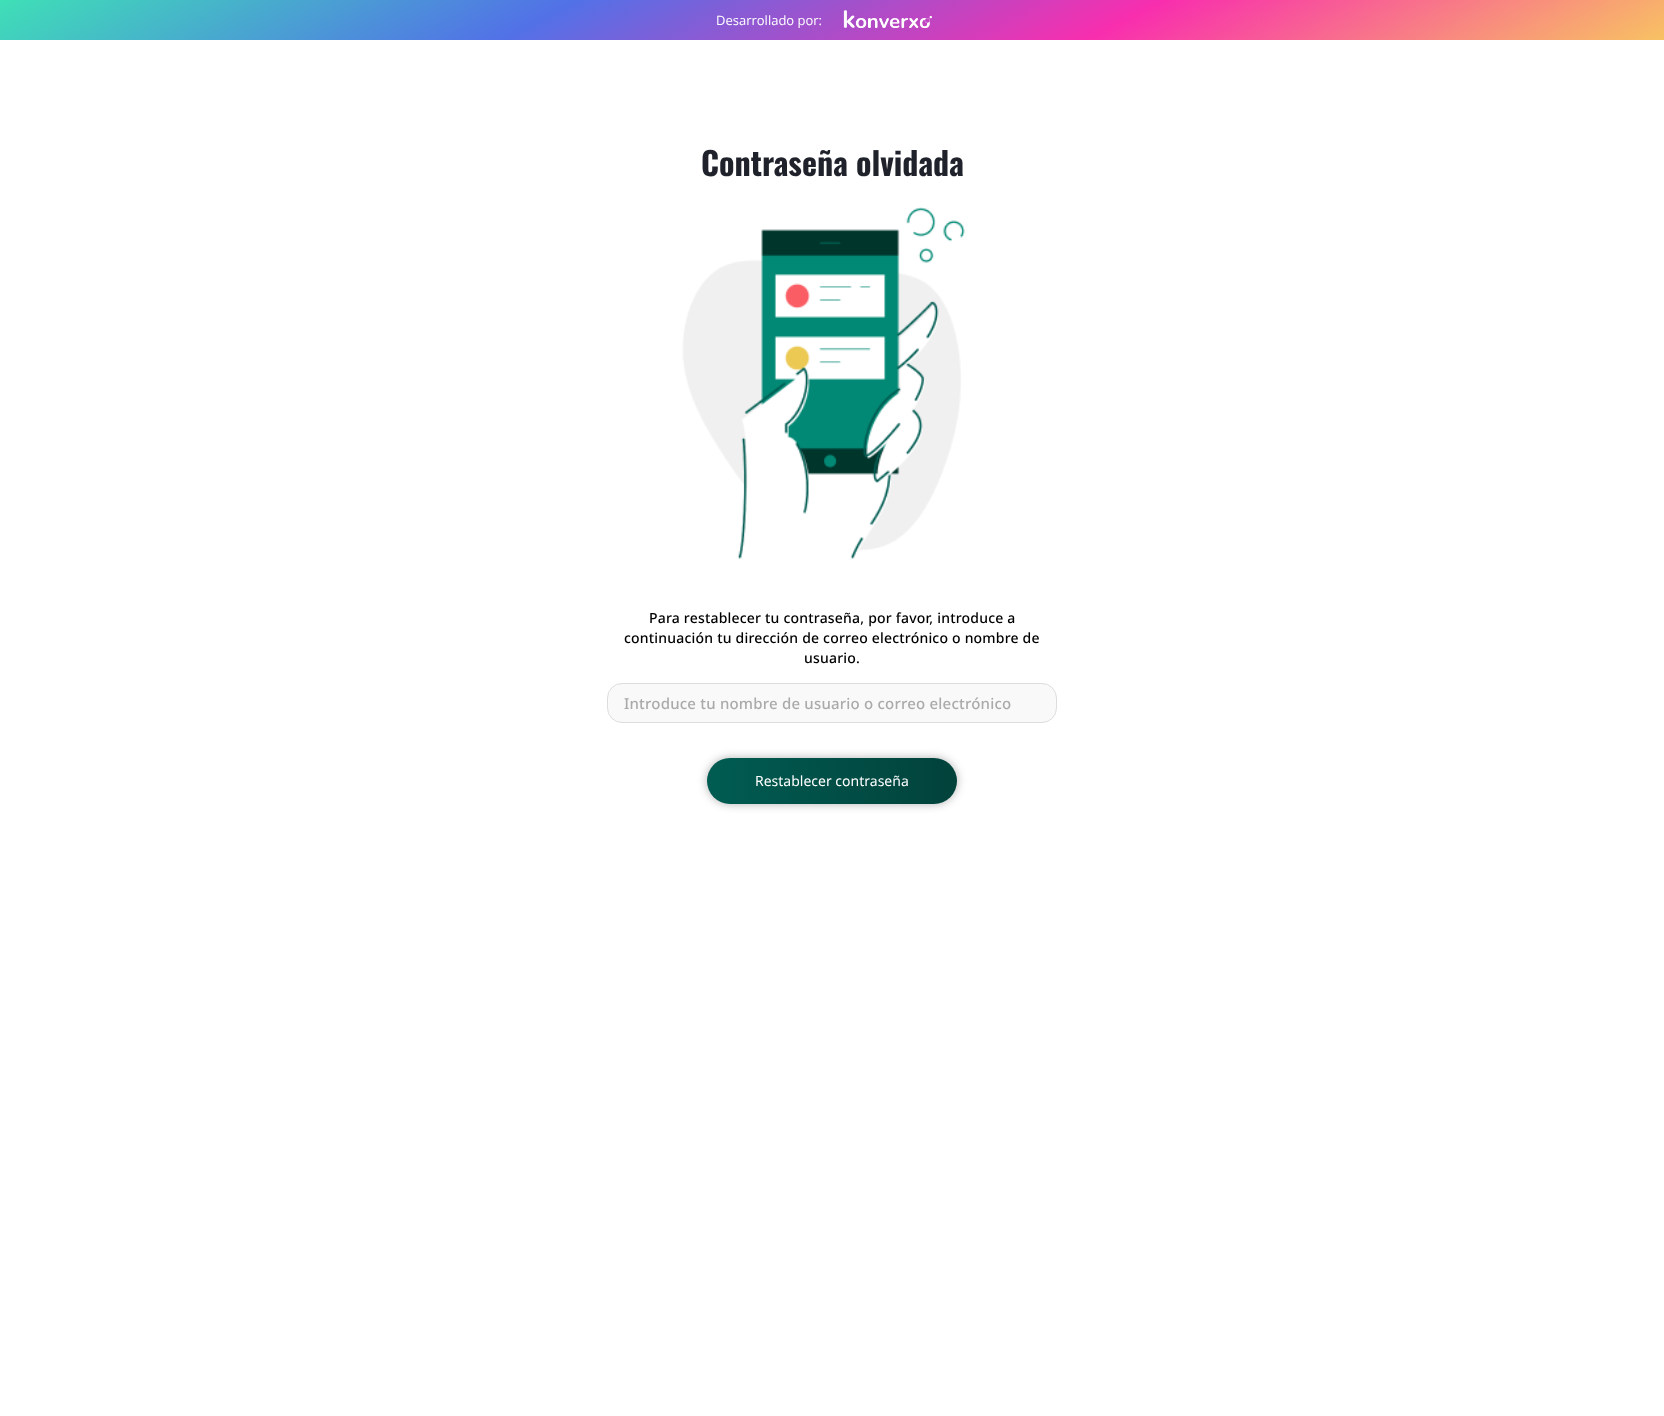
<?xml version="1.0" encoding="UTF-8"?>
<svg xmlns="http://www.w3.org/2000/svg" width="1664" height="1416">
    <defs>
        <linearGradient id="g1" gradientUnits="userSpaceOnUse" x1="640" y1="-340" x2="1024" y2="380"><stop offset="0" stop-color="#3FDFB7"/><stop offset="0.33" stop-color="#5271E7"/><stop offset="0.67" stop-color="#F82EAE"/><stop offset="1" stop-color="#F8C163"/></linearGradient>
        <filter id="blur1" x="-50%" y="-200%" width="200%" height="500%"><feGaussianBlur stdDeviation="5"/></filter>
        <linearGradient id="g2" gradientUnits="userSpaceOnUse" x1="707" y1="781" x2="957" y2="781"><stop offset="0" stop-color="#005C52"/><stop offset="1" stop-color="#02423B"/></linearGradient>
    </defs>
    <rect width="100%" height="100%" fill="#FFFFFF"/>
    <rect x="0" y="0" width="1664" height="40" fill="url(#g1)"/>
    <text x="716" y="25" font-family="Open Sans" font-size="13" fill="#FFFFFF">Desarrollado por:</text>
    <image x="843" y="10" width="89" height="18" href="img_01.png"/>
    <text x="701" y="176" font-family="Oswald" font-size="32" font-weight="700" fill="#1F222A">Contraseña olvidada</text>
    <image x="682" y="207" width="283" height="352" href="img_02.png"/>
    <text x="649" y="623" font-family="Noto Sans" font-size="14" font-weight="500" letter-spacing="0.2" fill="#000000">Para restablecer tu contraseña, por favor, introduce a</text>
    <text x="624" y="643" font-family="Noto Sans" font-size="14" font-weight="500" letter-spacing="0.2" fill="#000000">continuación tu dirección de correo electrónico o nombre de</text>
    <text x="804" y="663" font-family="Noto Sans" font-size="14" font-weight="500" letter-spacing="0.2" fill="#000000">usuario.</text>
    <rect x="607.5" y="683.5" width="449" height="39" rx="14.5" fill="#F9F9F9" stroke="#DDDDDD"/>
    <text x="624" y="709" font-family="Noto Sans" font-size="15" font-weight="500" letter-spacing="0.2" fill="#AAAAAA">Introduce tu nombre de usuario o correo electrónico</text>
    <rect x="707" y="758" width="250" height="46" rx="23" fill="#000000" fill-opacity="0.3" filter="url(#blur1)"/>
    <rect x="707" y="758" width="250" height="46" rx="23" fill="url(#g2)"/>
    <text x="755" y="786" font-family="Noto Sans" font-size="14" fill="#FFFFFF">Restablecer contraseña</text>
</svg>
